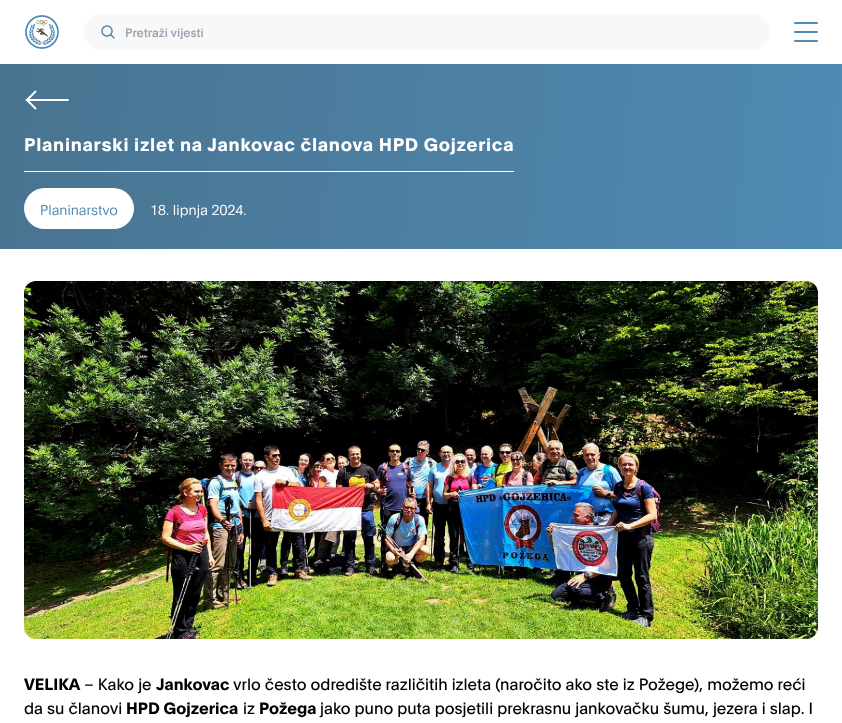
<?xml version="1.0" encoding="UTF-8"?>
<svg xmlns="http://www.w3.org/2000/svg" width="842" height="723">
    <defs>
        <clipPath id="clip1"><rect x="125" y="24" width="616" height="15"/></clipPath>
        <linearGradient id="g1" gradientUnits="userSpaceOnUse" x1="-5" y1="112" x2="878" y2="205"><stop offset="0.02" stop-color="#497491"/><stop offset="1" stop-color="#4F8BB4"/></linearGradient>
    </defs>
    <rect width="100%" height="100%" fill="#FFFFFF"/>
    <image x="25" y="15" width="34" height="34" href="img_01.png"/>
    <rect x="84" y="14" width="686" height="36" rx="18" fill="#F8F8F8"/>
    <image x="101" y="25" width="14" height="14" href="img_02.png"/>
    <g clip-path="url(#clip1)">
        <text x="125" y="37" font-family="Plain" font-size="12" font-weight="500" fill="#9CA3AF">Pretraži vijesti</text>
    </g>
    <rect x="794" y="22" width="24" height="2" rx="1" fill="#4F8BB4"/>
    <rect x="794" y="31" width="24" height="2" rx="1" fill="#4F8BB4"/>
    <rect x="794" y="40" width="24" height="2" rx="1" fill="#4F8BB4"/>
    <rect x="0" y="64" width="842" height="185" fill="url(#g1)"/>
    <path d="M 68 100 H 26.5 M 35.5 91.5 L 27 100 L 35.5 108.5" fill="none" stroke="#FFFFFF" stroke-width="1.9" stroke-linecap="round" stroke-linejoin="round"/>
    <rect x="24" y="171" width="490" height="1" fill="#FFFFFF"/>
    <text x="24" y="151" font-family="Plain" font-size="18" font-weight="700" letter-spacing="0.72" fill="#FFFFFF">Planinarski izlet na Jankovac članova HPD Gojzerica</text>
    <rect x="24" y="188" width="110" height="41" rx="20.5" fill="#FFFFFF"/>
    <text x="40" y="215" font-family="Plain" font-size="14" font-weight="300" fill="#4F8BB4">Planinarstvo</text>
    <text x="150" y="215" font-family="Plain" font-size="14" font-weight="300" letter-spacing="0.1" fill="#FFFFFF">18. lipnja 2024.</text>
    <image x="24" y="281" width="794" height="358" href="img_03.png"/>
    <text x="24" y="690" font-family="Plain" font-size="16" font-weight="700" fill="#000000">VELIKA</text>
    <text x="84" y="690" font-family="Plain" font-size="16" fill="#000000">– Kako je</text>
    <text x="156" y="690" font-family="Plain" font-size="16" font-weight="700" fill="#000000">Jankovac</text>
    <text x="233" y="690" font-family="Plain" font-size="16" fill="#000000">vrlo često odredište različitih izleta (naročito ako ste iz Požege), možemo reći</text>
    <text x="24" y="714" font-family="Plain" font-size="16" fill="#000000">da su članovi</text>
    <text x="126" y="714" font-family="Plain" font-size="16" font-weight="700" fill="#000000">HPD Gojzerica</text>
    <text x="243" y="714" font-family="Plain" font-size="16" fill="#000000">iz</text>
    <text x="259" y="714" font-family="Plain" font-size="16" font-weight="700" fill="#000000">Požega</text>
    <text x="320" y="714" font-family="Plain" font-size="16" fill="#000000">jako puno puta posjetili prekrasnu jankovačku šumu, jezera i slap. I</text>
</svg>
